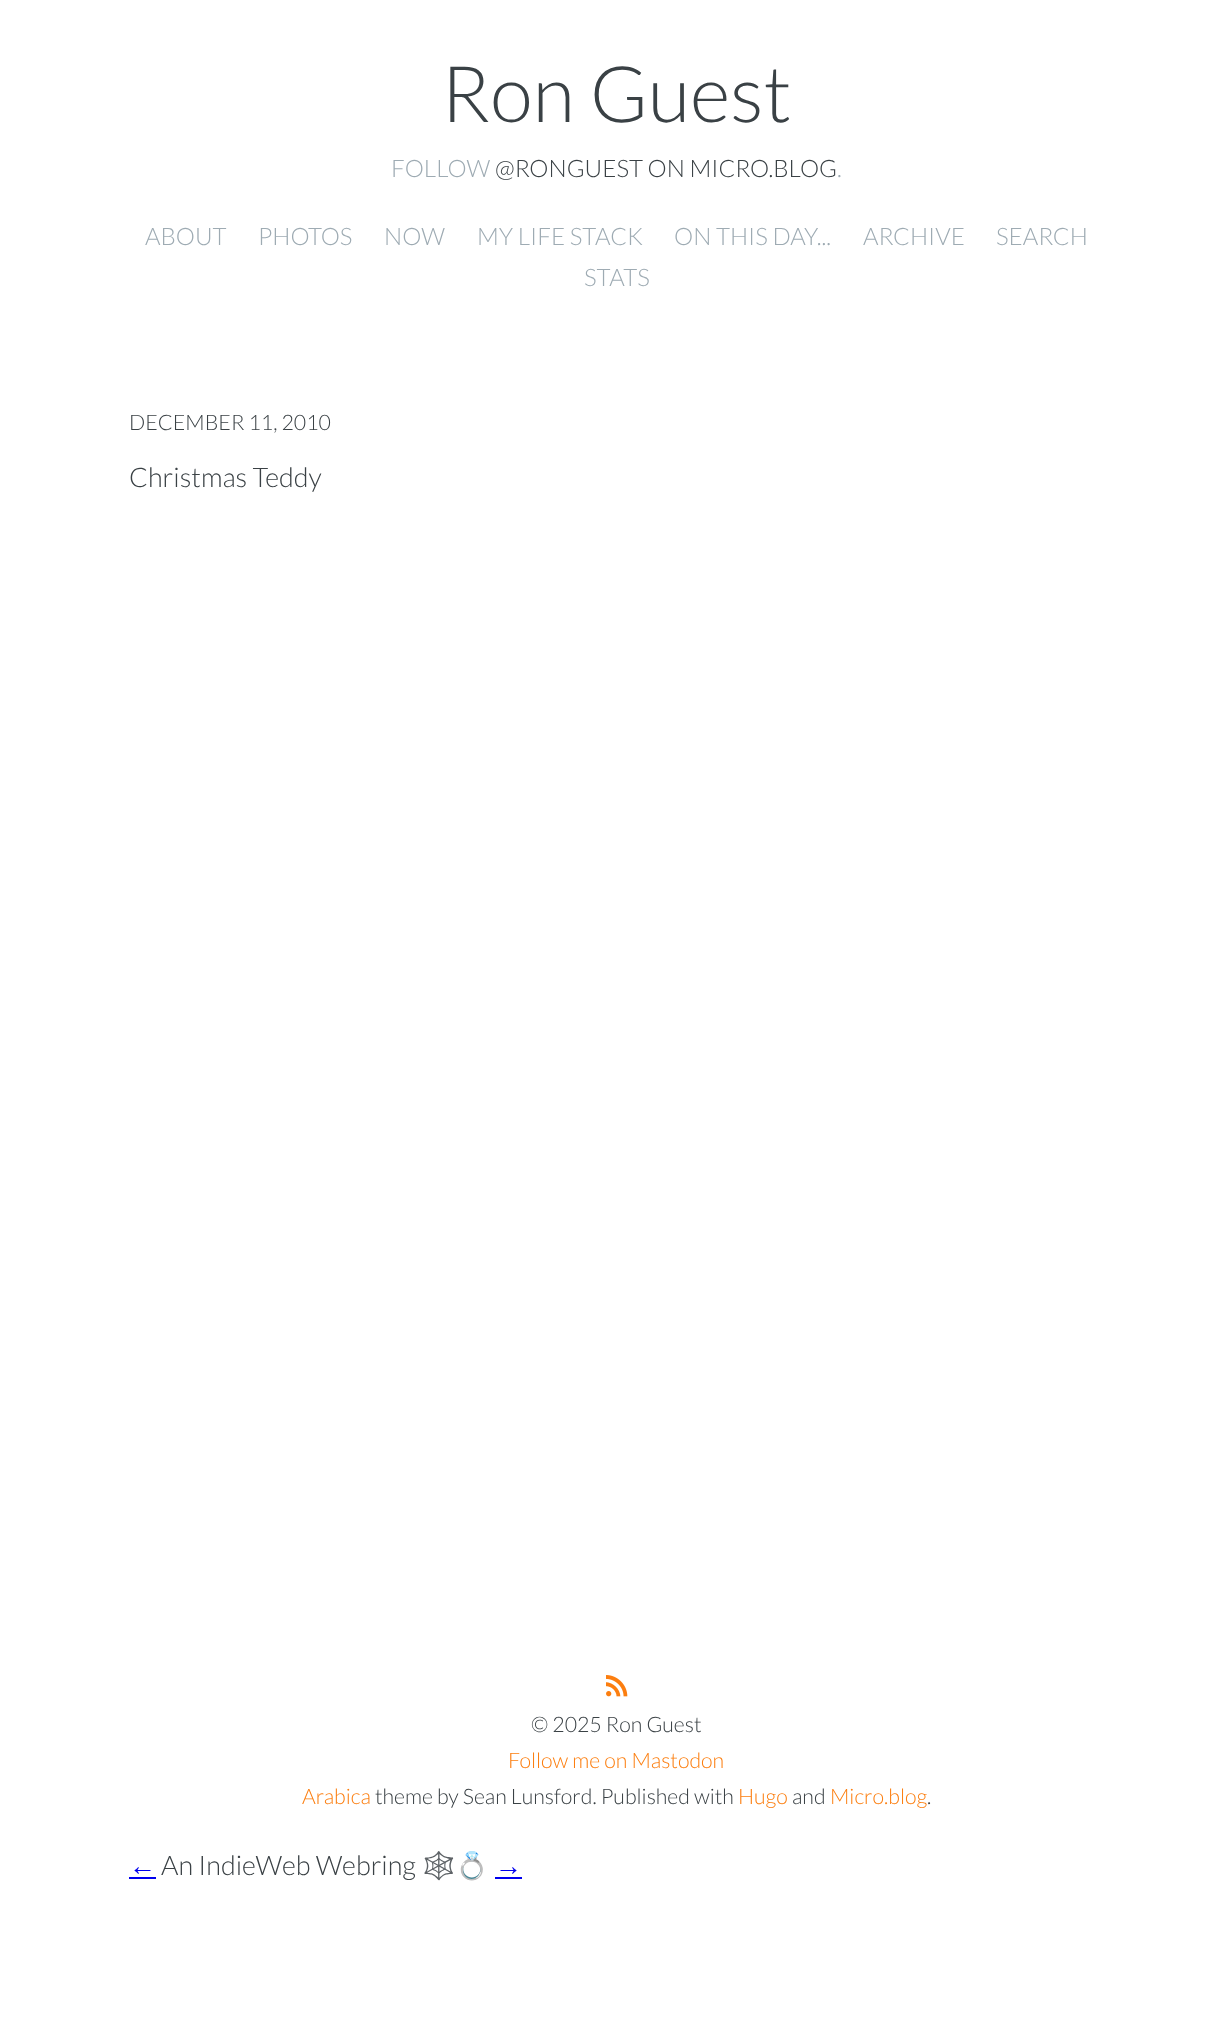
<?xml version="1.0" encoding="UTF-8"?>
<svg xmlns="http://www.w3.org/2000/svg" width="1232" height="2044">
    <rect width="100%" height="100%" fill="#FFFFFF"/>
    <text x="441" y="122" font-family="Lato" font-size="78" font-weight="300" fill="#3A4145">Ron Guest</text>
    <text x="391" y="177" font-family="Lato" font-size="24" font-weight="300" fill="#9EABB3">FOLLOW</text>
    <text x="495" y="177" font-family="Lato" font-size="24" font-weight="300" fill="#3A4145">@RONGUEST ON MICRO.BLOG</text>
    <text x="837" y="177" font-family="Lato" font-size="24" font-weight="300" fill="#9EABB3">.</text>
    <text x="145" y="245" font-family="Lato" font-size="24" font-weight="300" fill="#9EABB3">ABOUT</text>
    <text x="258" y="245" font-family="Lato" font-size="24" font-weight="300" fill="#9EABB3">PHOTOS</text>
    <text x="384" y="245" font-family="Lato" font-size="24" font-weight="300" fill="#9EABB3">NOW</text>
    <text x="477" y="245" font-family="Lato" font-size="24" font-weight="300" fill="#9EABB3">MY LIFE STACK</text>
    <text x="674" y="245" font-family="Lato" font-size="24" font-weight="300" fill="#9EABB3">ON THIS DAY...</text>
    <text x="863" y="245" font-family="Lato" font-size="24" font-weight="300" fill="#9EABB3">ARCHIVE</text>
    <text x="996" y="245" font-family="Lato" font-size="24" font-weight="300" fill="#9EABB3">SEARCH</text>
    <text x="584" y="286" font-family="Lato" font-size="24" font-weight="300" fill="#9EABB3">STATS</text>
    <text x="129" y="430" font-family="Lato" font-size="21.3" font-weight="300" fill="#3A4145">DECEMBER 11, 2010</text>
    <text x="129" y="487" font-family="Lato" font-size="27" font-weight="300" fill="#3A4145">Christmas Teddy</text>
    <image x="606" y="1675" width="22" height="22" href="img_01.png"/>
    <text x="531" y="1732" font-family="Lato" font-size="21.3" font-weight="300" fill="#3A4145">© 2025 Ron Guest</text>
    <text x="508" y="1768" font-family="Lato" font-size="21.3" font-weight="300" fill="#FC7E0F">Follow me on Mastodon</text>
    <text x="302" y="1804" font-family="Lato" font-size="21.3" font-weight="300" fill="#FC7E0F">Arabica</text>
    <text x="375" y="1804" font-family="Lato" font-size="21.3" font-weight="300" fill="#3A4145">theme by Sean Lunsford. Published with</text>
    <text x="738" y="1804" font-family="Lato" font-size="21.3" font-weight="300" fill="#FC7E0F">Hugo</text>
    <text x="792" y="1804" font-family="Lato" font-size="21.3" font-weight="300" fill="#3A4145">and</text>
    <text x="830" y="1804" font-family="Lato" font-size="21.3" font-weight="300" fill="#FC7E0F">Micro.blog</text>
    <text x="927" y="1804" font-family="Lato" font-size="21.3" font-weight="300" fill="#3A4145">.</text>
    <text x="129" y="1875" font-family="Liberation Sans" font-size="27" fill="#0000EE">←</text>
    <rect x="129" y="1877" width="27" height="2" fill="#0000EE"/>
    <text x="161" y="1875" font-family="Lato" font-size="27" font-weight="300" fill="#3A4145">An IndieWeb Webring</text>
    <text x="422" y="1875" font-family="Noto Color Emoji" font-size="27" fill="#3A4145">🕸💍</text>
    <text x="495" y="1875" font-family="Liberation Sans" font-size="27" fill="#0000EE">→</text>
    <rect x="495" y="1877" width="27" height="2" fill="#0000EE"/>
</svg>
